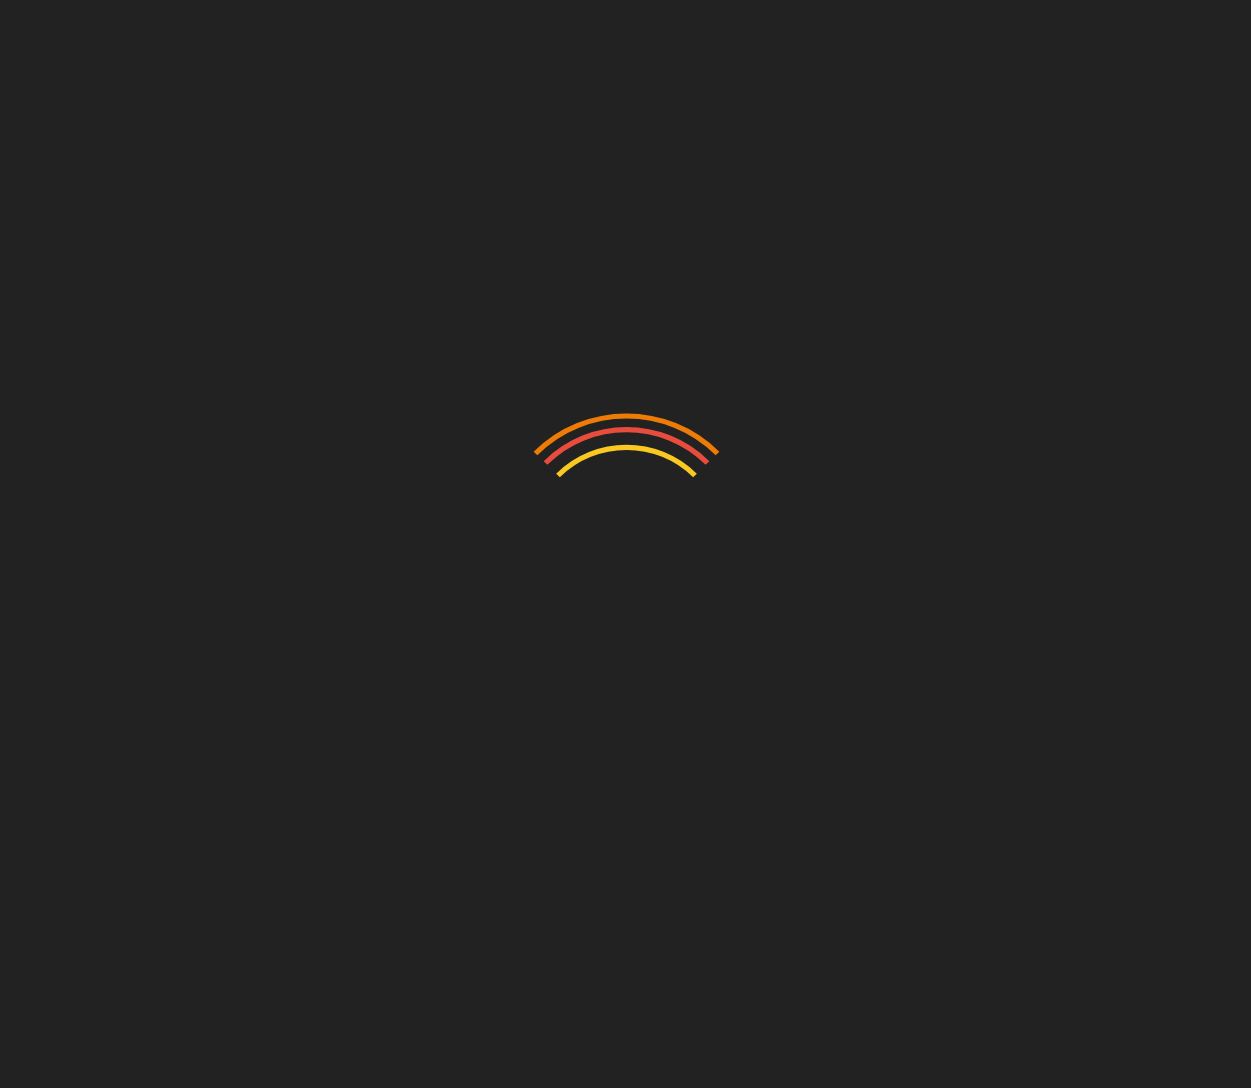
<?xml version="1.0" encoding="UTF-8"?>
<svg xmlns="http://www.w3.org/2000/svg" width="1251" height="1088">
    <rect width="100%" height="100%" fill="#222222"/>
    <path d="M 535.5 453.5 C 585.5 403.5 667.5 403.5 717.5 453.5" fill="none" stroke="#EF7B07" stroke-width="5.2"/>
    <path d="M 545.5 463 C 590 418.5 663 418.5 707.5 463" fill="none" stroke="#E74C3C" stroke-width="5.2"/>
    <path d="M 558 475.5 C 595.5 438 657.5 438 695 475.5" fill="none" stroke="#F9C922" stroke-width="5.2"/>
</svg>
